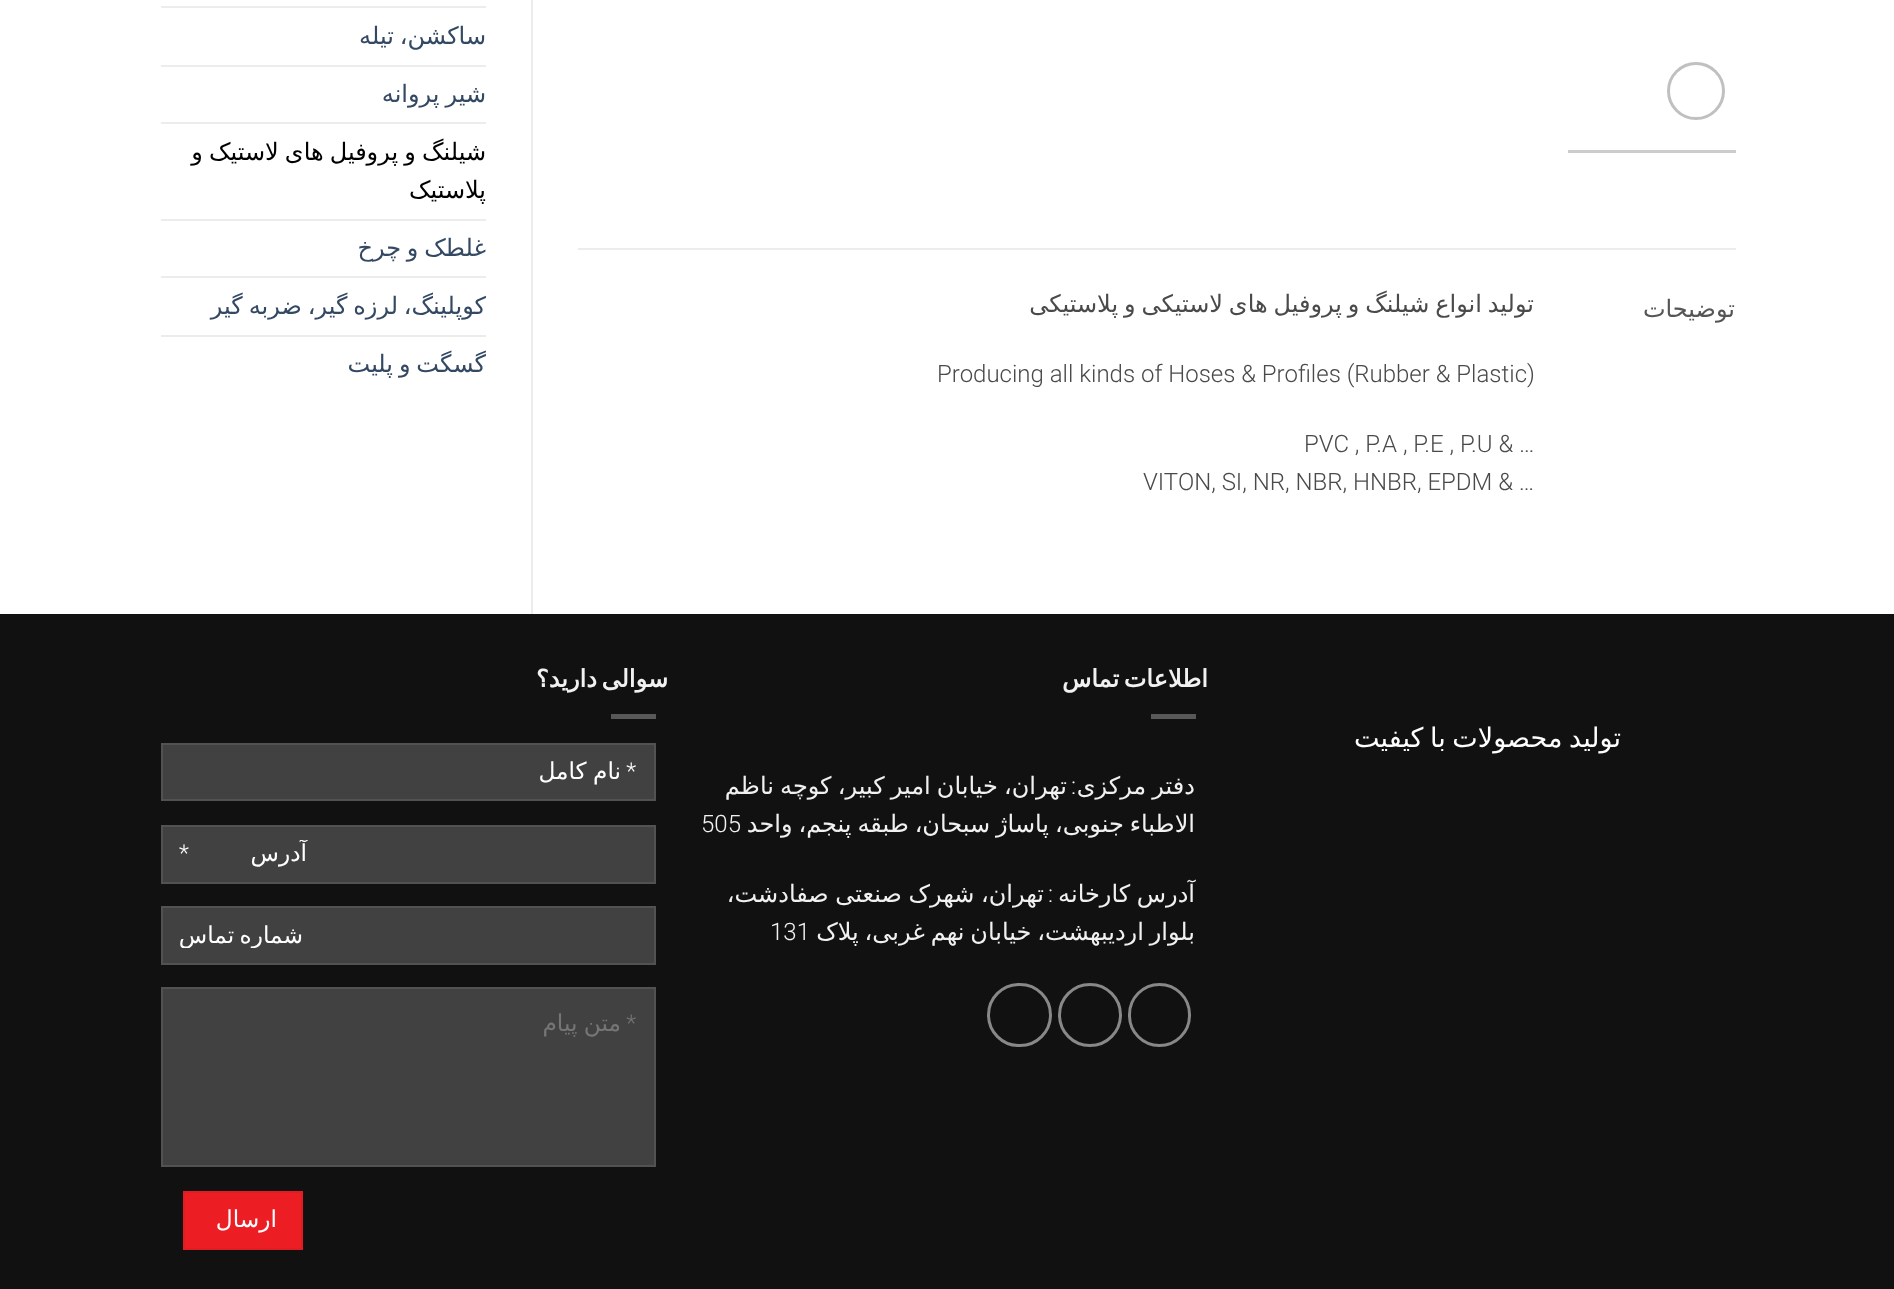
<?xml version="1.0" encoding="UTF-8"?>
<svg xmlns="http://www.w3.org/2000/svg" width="1894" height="1289">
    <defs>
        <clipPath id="clip1"><rect x="179" y="840" width="457" height="27"/></clipPath>
        <clipPath id="clip2"><rect x="179" y="921" width="457" height="27"/></clipPath>
    </defs>
    <rect width="100%" height="100%" fill="#FFFFFF"/>
    <rect x="531" y="0" width="2" height="614" fill="#ECECEC"/>
    <circle cx="1696" cy="91" r="27.5" fill="none" stroke="#C0C0C0" stroke-width="3"/>
    <rect x="1568" y="150" width="168" height="3" fill="#CCCCCC"/>
    <rect x="578" y="248" width="1158" height="2" fill="#ECECEC"/>
    <text x="1735" y="317" font-family="DejaVu Sans" font-size="24" direction="rtl" fill="#555555">توضیحات</text>
    <text x="1534" y="312" word-spacing="-1.75" font-family="DejaVu Sans" font-size="24" direction="rtl" fill="#4A4A4A">تولید انواع شیلنگ و پروفیل هاى لاستیکى و پلاستیکى</text>
    <text x="937" y="382" font-family="Roboto" font-size="24" font-weight="300" fill="#4A4A4A">Producing all kinds of Hoses &amp; Profiles (Rubber &amp; Plastic)</text>
    <text x="1304" y="452" font-family="Roboto" font-size="24" font-weight="300" fill="#4A4A4A">PVC , P.A , P.E , P.U &amp; …</text>
    <text x="1143" y="490" font-family="Roboto" font-size="24" font-weight="300" fill="#4A4A4A">VITON, SI, NR, NBR, HNBR, EPDM &amp; …</text>
    <rect x="161" y="6" width="325" height="2" fill="#ECECEC"/>
    <text x="486" y="44" word-spacing="-1.75" font-family="DejaVu Sans" font-size="24" direction="rtl" fill="#334862">ساکشن، تیله</text>
    <rect x="161" y="65" width="325" height="2" fill="#ECECEC"/>
    <text x="486" y="102" word-spacing="-1.75" font-family="DejaVu Sans" font-size="24" direction="rtl" fill="#334862">شیر پروانه</text>
    <rect x="161" y="122" width="325" height="2" fill="#ECECEC"/>
    <text font-family="DejaVu Sans" font-size="24" direction="rtl" fill="#000000">
        <tspan x="486" y="160" word-spacing="-1.5">شیلنگ و پروفیل هاى لاستیک و</tspan>
        <tspan x="486" y="198">پلاستیک</tspan>
    </text>
    <rect x="161" y="219" width="325" height="2" fill="#ECECEC"/>
    <text x="486" y="256" word-spacing="-1.75" font-family="DejaVu Sans" font-size="24" direction="rtl" fill="#334862">غلطک و چرخ</text>
    <rect x="161" y="276" width="325" height="2" fill="#ECECEC"/>
    <text x="486" y="314" word-spacing="-1.75" font-family="DejaVu Sans" font-size="24" direction="rtl" fill="#334862">کوپلینگ، لرزه گیر، ضربه گیر</text>
    <rect x="161" y="335" width="325" height="2" fill="#ECECEC"/>
    <text x="486" y="372" word-spacing="-1.75" font-family="DejaVu Sans" font-size="24" direction="rtl" fill="#334862">گسگت و پلیت</text>
    <rect x="0" y="614" width="1894" height="675" fill="#111111"/>
    <text x="1621" y="747" word-spacing="-2" font-family="DejaVu Sans" font-size="27" direction="rtl" fill="#FFFFFF">تولید محصولات با کیفیت</text>
    <text x="1208" y="687" word-spacing="-3" font-family="DejaVu Sans" font-size="24" font-weight="700" letter-spacing="1.25" direction="rtl" fill="#F1F1F1">اطلاعات تماس</text>
    <rect x="1151" y="714" width="45" height="5" fill="#585858"/>
    <text x="1195" y="794" word-spacing="-1.5" font-family="DejaVu Sans" font-size="24" direction="rtl" fill="#F1F1F1">دفتر مرکزى</text>
    <text x="1076" y="794" font-family="Roboto" font-size="24" font-weight="300" direction="rtl" fill="#F1F1F1">:</text>
    <text x="1067" y="794" word-spacing="-1.5" font-family="DejaVu Sans" font-size="24" direction="rtl" fill="#F1F1F1">تهران، خیابان امیر کبیر، کوچه ناظم</text>
    <text x="1195" y="832" word-spacing="-1.75" font-family="DejaVu Sans" font-size="24" direction="rtl" fill="#F1F1F1">الاطباء جنوبى، پاساژ سبحان، طبقه پنجم، واحد</text>
    <text x="701" y="832" font-family="Roboto" font-size="24" font-weight="300" fill="#F1F1F1">505</text>
    <text x="1195" y="902" word-spacing="-1" font-family="DejaVu Sans" font-size="24" direction="rtl" fill="#F1F1F1">آدرس کارخانه</text>
    <text x="1053" y="902" font-family="Roboto" font-size="24" font-weight="300" direction="rtl" fill="#F1F1F1">:</text>
    <text x="1044" y="902" word-spacing="-1" font-family="DejaVu Sans" font-size="24" direction="rtl" fill="#F1F1F1">تهران، شهرک صنعتى صفادشت،</text>
    <text x="1195" y="940" word-spacing="-1.75" font-family="DejaVu Sans" font-size="24" direction="rtl" fill="#F1F1F1">بلوار اردیبهشت، خیابان نهم غربى، پلاک</text>
    <text x="770" y="940" font-family="Roboto" font-size="24" font-weight="300" fill="#F1F1F1">131</text>
    <rect x="1129.5" y="984.5" width="60" height="61" rx="30" fill="none" stroke="#888888" stroke-width="3"/>
    <circle cx="1090" cy="1015" r="30.5" fill="none" stroke="#888888" stroke-width="3"/>
    <rect x="988.5" y="984.5" width="62" height="61" rx="30.5" fill="none" stroke="#888888" stroke-width="3"/>
    <text x="668" y="687" word-spacing="-3" font-family="DejaVu Sans" font-size="24" font-weight="700" letter-spacing="1.25" direction="rtl" fill="#F1F1F1">سوالی دارید؟</text>
    <rect x="611" y="714" width="45" height="5" fill="#585858"/>
    <rect x="162" y="744" width="493" height="56" fill="#414141" stroke="#525252" stroke-width="2"/>
    <text x="636" y="779" font-family="Roboto" font-size="23.25" font-weight="300" direction="rtl" fill="#FFFFFF">*</text>
    <text x="621" y="779" word-spacing="-1" font-family="DejaVu Sans" font-size="23.25" direction="rtl" fill="#FFFFFF">نام کامل</text>
    <rect x="162" y="826" width="493" height="57" fill="#414141" stroke="#525252" stroke-width="2"/>
    <g clip-path="url(#clip1)">
        <text x="307" y="861" font-family="DejaVu Sans" font-size="23.25" direction="rtl" fill="#FFFFFF">آدرس</text>
    </g>
    <text x="179" y="861" font-family="Roboto" font-size="23.25" font-weight="300" fill="#FFFFFF">*</text>
    <rect x="162" y="907" width="493" height="57" fill="#414141" stroke="#525252" stroke-width="2"/>
    <g clip-path="url(#clip2)">
        <text x="303" y="943" word-spacing="-2" font-family="DejaVu Sans" font-size="23.25" direction="rtl" fill="#FFFFFF">شماره تماس</text>
    </g>
    <rect x="162" y="988" width="493" height="178" fill="#414141" stroke="#525252" stroke-width="2"/>
    <text x="636" y="1031" font-family="Roboto" font-size="23.25" font-weight="300" direction="rtl" fill="#757575">*</text>
    <text x="621" y="1031" word-spacing="-1" font-family="DejaVu Sans" font-size="23.25" direction="rtl" fill="#757575">متن پیام</text>
    <rect x="184" y="1192" width="118" height="57" fill="#ED1D24" stroke="#E11C22" stroke-width="2"/>
    <text x="277" y="1227" font-family="DejaVu Sans" font-size="23.25" letter-spacing="0.5" direction="rtl" fill="#FFFFFF">ارسال</text>
</svg>
